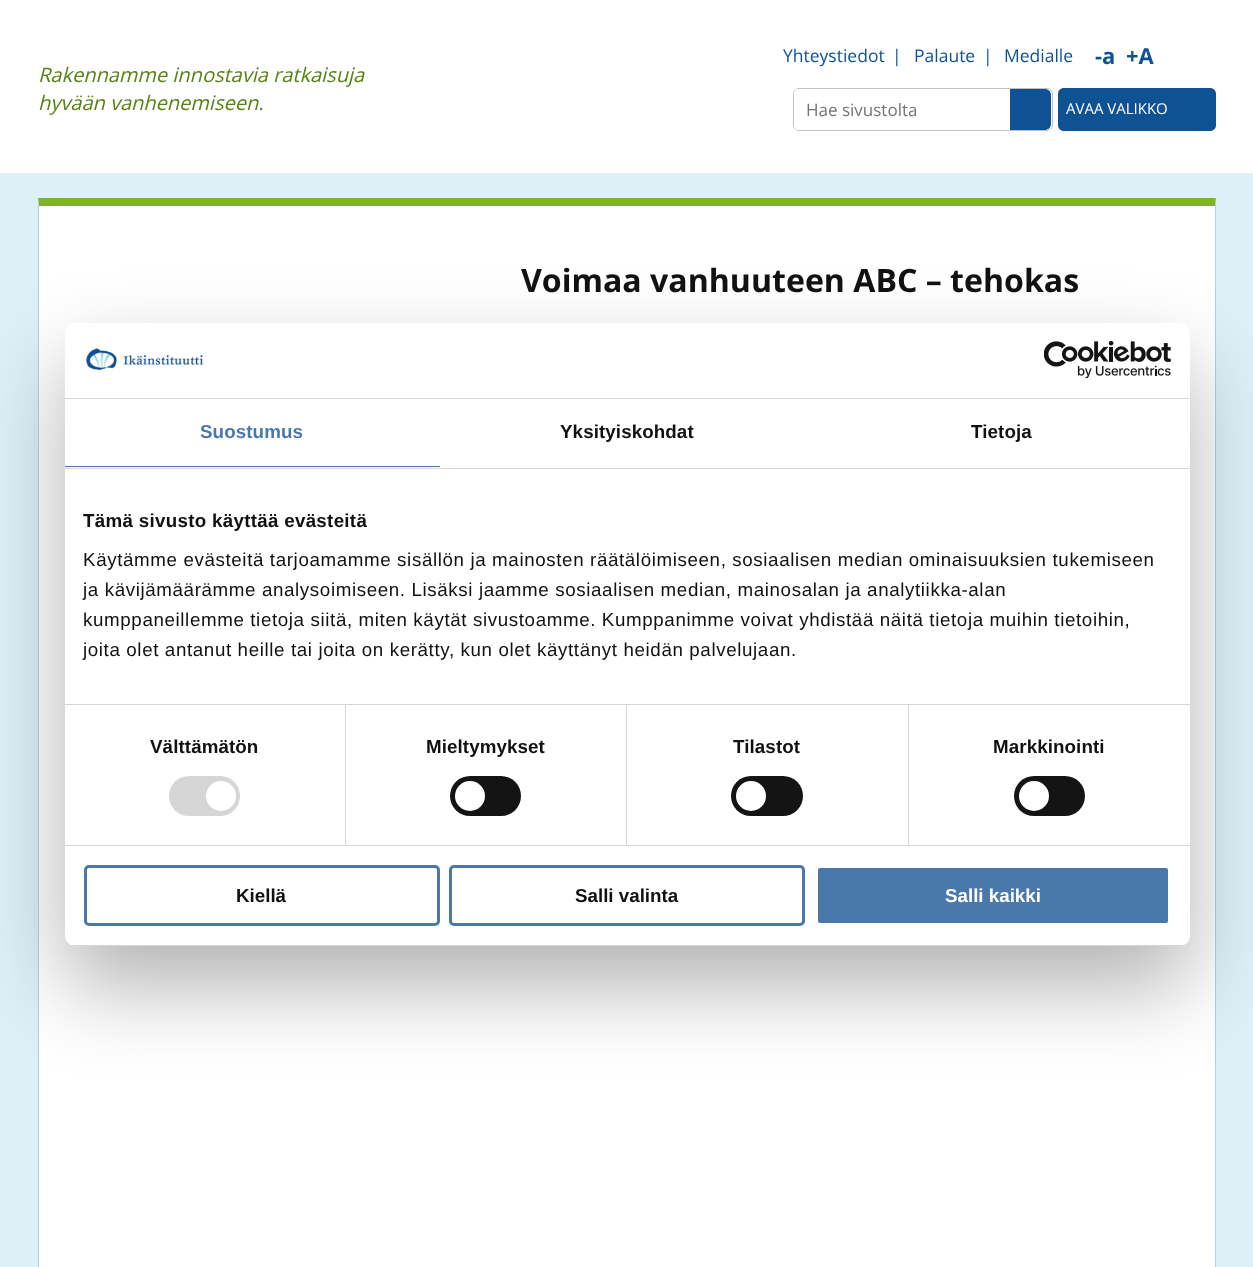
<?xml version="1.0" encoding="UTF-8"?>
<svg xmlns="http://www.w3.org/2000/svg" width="1253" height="1267">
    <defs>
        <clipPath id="clip1"><rect x="794" y="89" width="257" height="41" rx="5"/></clipPath>
        <filter id="blur1" x="-50%" y="-200%" width="200%" height="500%"><feGaussianBlur stdDeviation="42.5"/></filter>
        <clipPath id="clip2"><rect x="65" y="323" width="1125" height="623" rx="10"/></clipPath>
    </defs>
    <rect width="100%" height="100%" fill="#FFFFFF"/>
    <text font-family="Open Sans" font-size="20" font-style="italic" fill="#568214">
        <tspan x="38" y="82">Rakennamme innostavia ratkaisuja</tspan>
        <tspan x="38" y="110">hyvään vanhenemiseen.</tspan>
    </text>
    <text x="783" y="62" font-family="Open Sans" font-size="17.5" fill="#0F5294">Yhteystiedot</text>
    <text x="892" y="62" font-family="Open Sans" font-size="17.5" fill="#0F5294">|</text>
    <text x="914" y="62" font-family="Open Sans" font-size="17.5" fill="#0F5294">Palaute</text>
    <text x="983" y="62" font-family="Open Sans" font-size="17.5" fill="#0F5294">|</text>
    <text x="1004" y="62" font-family="Open Sans" font-size="17.5" fill="#0F5294">Medialle</text>
    <text x="1095" y="64" font-family="Open Sans" font-size="22" font-weight="700" fill="#0F5294">-a</text>
    <text x="1126" y="64" font-family="Open Sans" font-size="22" font-weight="700" fill="#0F5294">+A</text>
    <rect x="793.5" y="88.5" width="259" height="42" rx="5.5" fill="none" stroke="#C1C1C1"/>
    <path d="M 799 89 H 1010 V 130 H 799 C 796 130 794 128 794 125 V 94 C 794 91 796 89 799 89 Z" fill="#FFFFFF"/>
    <text x="806" y="116" font-family="Open Sans" font-size="17" fill="#757575">Hae sivustolta</text>
    <g clip-path="url(#clip1)">
        <path d="M 1010 89 H 1045 C 1048.5 89 1051 91.5 1051 95 V 124 C 1051 127.5 1048.5 130 1045 130 H 1010 Z" fill="#0F5294"/>
    </g>
    <path d="M 1064 88 H 1168 V 131 H 1064 C 1060.5 131 1058 128.5 1058 125 V 94 C 1058 90.5 1060.5 88 1064 88 Z" fill="#0F5294"/>
    <text x="1066" y="114" font-family="Open Sans" font-size="15" fill="#FFFFFF">AVAA VALIKKO</text>
    <path d="M 1168 88 H 1210 C 1213.5 88 1216 90.5 1216 94 V 125 C 1216 128.5 1213.5 131 1210 131 H 1168 Z" fill="#0F5294"/>
    <rect x="0" y="173" width="1253" height="1094" fill="#DCF0F6"/>
    <rect x="39" y="206" width="1176" height="1061" fill="#FFFFFF"/>
    <path d="M 38 198 H 1216 L 1215 206 H 39 Z" fill="#7EB32E"/>
    <path d="M 1216 198 V 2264 L 1215 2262 V 206 Z" fill="#B3D0E2"/>
    <path d="M 38 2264 V 198 L 39 206 V 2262 Z" fill="#B3D0E2"/>
    <text x="521" y="292" font-family="Open Sans" font-size="32.1" font-weight="700" fill="#111111">Voimaa vanhuuteen ABC – tehokas</text>
    <rect x="65" y="363" width="1125" height="623" rx="10" fill="#000000" fill-opacity="0.3" filter="url(#blur1)"/>
    <rect x="65" y="323" width="1125" height="623" rx="10" fill="#FFFFFF"/>
    <rect x="65" y="398" width="1125" height="1" fill="#D6D6D6"/>
    <image x="86" y="348" width="118" height="23" href="img_01.png"/>
    <image x="1044" y="341" width="127" height="38" href="img_02.png"/>
    <rect x="65" y="468" width="1125" height="1" fill="#D6D6D6"/>
    <rect x="65" y="466" width="375" height="1" fill="#4A78AB"/>
    <text x="200" y="438" font-family="Liberation Sans" font-size="18.75" font-weight="700" letter-spacing="0.1" fill="#4A78AB">Suostumus</text>
    <text x="560" y="438" font-family="Liberation Sans" font-size="18.75" font-weight="700" letter-spacing="0.1" fill="#111111">Yksityiskohdat</text>
    <text x="971" y="438" font-family="Liberation Sans" font-size="18.75" font-weight="700" letter-spacing="0.1" fill="#111111">Tietoja</text>
    <rect x="65" y="704" width="1125" height="1" fill="#D6D6D6"/>
    <text x="83" y="527" font-family="Liberation Sans" font-size="18.75" font-weight="700" letter-spacing="0.3" fill="#111111">Tämä sivusto käyttää evästeitä</text>
    <text font-family="Liberation Sans" font-size="18.75" letter-spacing="0.62" fill="#111111">
        <tspan x="83" y="566">Käytämme evästeitä tarjoamamme sisällön ja mainosten räätälöimiseen, sosiaalisen median ominaisuuksien tukemiseen</tspan>
        <tspan x="83" y="596">ja kävijämäärämme analysoimiseen. Lisäksi jaamme sosiaalisen median, mainosalan ja analytiikka-alan</tspan>
        <tspan x="83" y="626">kumppaneillemme tietoja siitä, miten käytät sivustoamme. Kumppanimme voivat yhdistää näitä tietoja muihin tietoihin,</tspan>
        <tspan x="83" y="656">joita olet antanut heille tai joita on kerätty, kun olet käyttänyt heidän palvelujaan.</tspan>
    </text>
    <rect x="65" y="845" width="1125" height="1" fill="#D6D6D6"/>
    <rect x="345" y="705" width="1" height="140" fill="#D6D6D6"/>
    <text x="150" y="753" font-family="Liberation Sans" font-size="18.75" font-weight="700" letter-spacing="0.1" fill="#111111">Välttämätön</text>
    <rect x="169" y="776" width="71" height="40" rx="20" fill="#D6D6D6"/>
    <circle cx="221" cy="796" r="15" fill="#FFFFFF"/>
    <rect x="626" y="705" width="1" height="140" fill="#D6D6D6"/>
    <text x="426" y="753" font-family="Liberation Sans" font-size="18.75" font-weight="700" letter-spacing="0.1" fill="#111111">Mieltymykset</text>
    <rect x="450" y="776" width="71" height="40" rx="20" fill="#141414"/>
    <circle cx="470" cy="796" r="15" fill="#FFFFFF"/>
    <rect x="908" y="705" width="1" height="140" fill="#D6D6D6"/>
    <text x="733" y="753" font-family="Liberation Sans" font-size="18.75" font-weight="700" letter-spacing="0.1" fill="#111111">Tilastot</text>
    <rect x="731" y="776" width="72" height="40" rx="20" fill="#141414"/>
    <circle cx="751" cy="796" r="15" fill="#FFFFFF"/>
    <text x="993" y="753" font-family="Liberation Sans" font-size="18.75" font-weight="700" letter-spacing="0.1" fill="#111111">Markkinointi</text>
    <rect x="1014" y="776" width="71" height="40" rx="20" fill="#141414"/>
    <circle cx="1034" cy="796" r="15" fill="#FFFFFF"/>
    <g clip-path="url(#clip2)">
        <rect x="65" y="945" width="1125" height="1" fill="#D6D6D6"/>
    </g>
    <rect x="85.5" y="866.5" width="353" height="58" rx="3.5" fill="none" stroke="#4A78AB" stroke-width="3"/>
    <text x="236" y="902" font-family="Liberation Sans" font-size="18.75" font-weight="700" fill="#111111">Kiellä</text>
    <rect x="450.5" y="866.5" width="353" height="58" rx="3.5" fill="none" stroke="#4A78AB" stroke-width="3"/>
    <text x="575" y="902" font-family="Liberation Sans" font-size="18.75" font-weight="700" fill="#111111">Salli valinta</text>
    <rect x="816.5" y="866.5" width="353" height="58" rx="3.5" fill="#4A78AB" stroke="#FFFFFF" stroke-width="3"/>
    <text x="945" y="902" font-family="Liberation Sans" font-size="18.75" font-weight="700" fill="#FFFFFF">Salli kaikki</text>
</svg>
